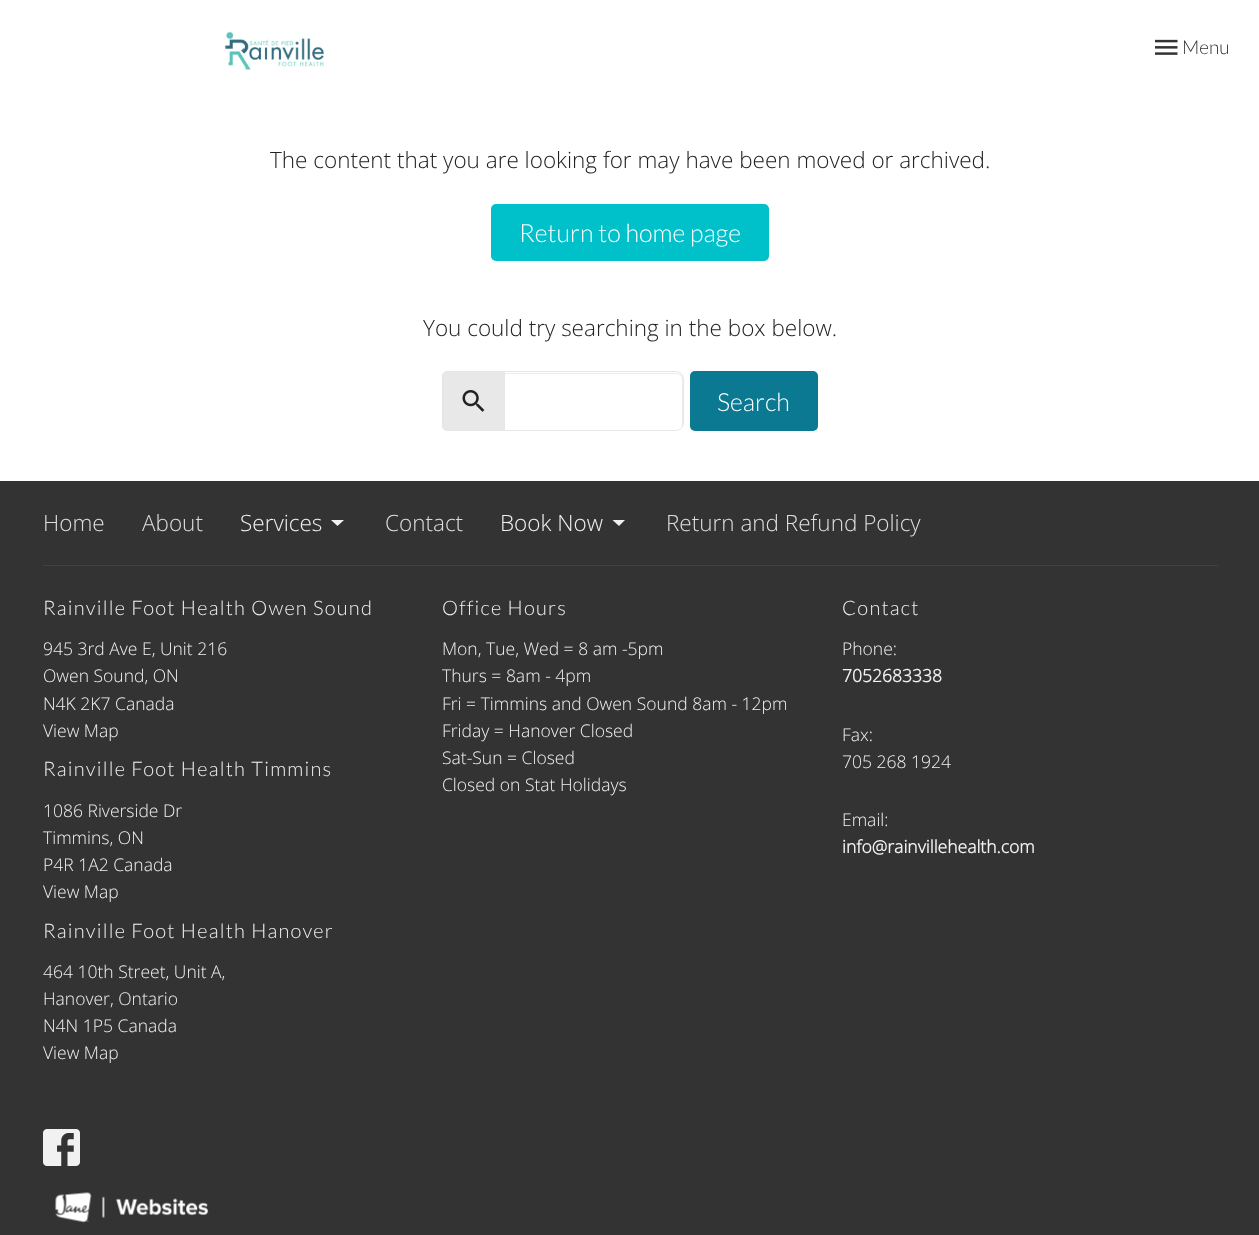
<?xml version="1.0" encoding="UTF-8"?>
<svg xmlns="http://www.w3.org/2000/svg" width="1259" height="1235">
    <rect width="100%" height="100%" fill="#FFFFFF"/>
    <image x="224" y="31" width="101" height="39" href="img_01.png"/>
    <image x="1155" y="39" width="23" height="16" href="img_02.png"/>
    <text x="1182" y="54" font-family="Lato" font-size="19" font-weight="300" fill="#333333">Menu</text>
    <text x="270" y="168" font-family="Open Sans" font-size="22.5" font-weight="300" fill="#222222">The content that you are looking for may have been moved or archived.</text>
    <rect x="491" y="204" width="278" height="57" rx="5" fill="#00C1CA"/>
    <text x="519" y="242" font-family="Lato" font-size="25" font-weight="300" fill="#FFFFFF">Return to home page</text>
    <text x="423" y="336" font-family="Open Sans" font-size="22.5" font-weight="300" fill="#222222">You could try searching in the box below.</text>
    <path d="M 448 371 H 504 V 431 H 448 C 445 431 443 429 443 426 V 376 C 443 373 445 371 448 371 Z" fill="#E8E8E8"/>
    <path d="M 448 371 H 504 V 431 H 448 C 445 431 442 429 442 426 V 376 C 442 373 445 371 448 371 Z M 448 372 H 504 V 430 H 448 C 445 430 444 428 444 426 V 376 C 444 374 445 372 448 372 Z" fill="#E6E6E6" fill-rule="evenodd"/>
    <image x="462" y="390" width="23" height="22" href="img_03.png"/>
    <path d="M 505 374 H 676 C 680 374 682 377 682 380 V 425 C 682 426 682 427 681 428 C 682 427 683 426 683 424 V 379 C 683 376 680 373 677 373 H 505 Z" fill="#ECECEC"/>
    <path d="M 504.5 371.5 H 676 C 680 371.5 683.5 375 683.5 379 V 423 C 683.5 427 680 430.5 676 430.5 H 504.5 Z" fill="none" stroke="#E6E6E6"/>
    <rect x="690" y="371" width="128" height="60" rx="5" fill="#0B7992"/>
    <text x="717" y="411" font-family="Lato" font-size="25" font-weight="300" fill="#FFFFFF">Search</text>
    <rect x="0" y="481" width="1259" height="754" fill="#333333"/>
    <text x="43" y="531" font-family="Open Sans" font-size="22.5" font-weight="300" fill="#DEDEDE">Home</text>
    <text x="142" y="531" font-family="Open Sans" font-size="22.5" font-weight="300" fill="#DEDEDE">About</text>
    <text x="240" y="531" font-family="Open Sans" font-size="22.5" font-weight="300" fill="#F1F1F1">Services</text>
    <path d="M 331 520 L 337.5 526 L 344 520 Z" fill="#F1F1F1"/>
    <text x="385" y="531" font-family="Open Sans" font-size="22.5" font-weight="300" fill="#DEDEDE">Contact</text>
    <text x="500" y="531" font-family="Open Sans" font-size="22.5" font-weight="300" fill="#F1F1F1">Book Now</text>
    <path d="M 612.5 520 L 619 526 L 625 520 Z" fill="#F1F1F1"/>
    <text x="666" y="531" font-family="Open Sans" font-size="22.5" font-weight="300" fill="#DEDEDE">Return and Refund Policy</text>
    <rect x="43" y="565" width="1175" height="1" fill="#424242"/>
    <text x="43" y="615" font-family="Lato" font-size="20" font-weight="300" letter-spacing="1.25" fill="#F1F1F1">Rainville Foot Health Owen Sound</text>
    <text font-family="Open Sans" font-size="17.5" font-weight="300" fill="#F1F1F1">
        <tspan x="43" y="655">945 3rd Ave E, Unit 216</tspan>
        <tspan x="43" y="682">Owen Sound, ON</tspan>
        <tspan x="43" y="710">N4K 2K7 Canada</tspan>
        <tspan x="43" y="737">View Map</tspan>
    </text>
    <text x="43" y="776" font-family="Lato" font-size="20" font-weight="300" letter-spacing="1.25" fill="#F1F1F1">Rainville Foot Health Timmins</text>
    <text font-family="Open Sans" font-size="17.5" font-weight="300" fill="#F1F1F1">
        <tspan x="43" y="817">1086 Riverside Dr</tspan>
        <tspan x="43" y="844">Timmins, ON</tspan>
        <tspan x="43" y="871">P4R 1A2 Canada</tspan>
        <tspan x="43" y="898">View Map</tspan>
    </text>
    <text x="43" y="938" font-family="Lato" font-size="20" font-weight="300" letter-spacing="1.25" fill="#F1F1F1">Rainville Foot Health Hanover</text>
    <text font-family="Open Sans" font-size="17.5" font-weight="300" fill="#F1F1F1">
        <tspan x="43" y="978">464 10th Street, Unit A,</tspan>
        <tspan x="43" y="1005">Hanover, Ontario</tspan>
        <tspan x="43" y="1032">N4N 1P5 Canada</tspan>
        <tspan x="43" y="1059">View Map</tspan>
    </text>
    <text x="442" y="615" font-family="Lato" font-size="20" font-weight="300" letter-spacing="1.25" fill="#F1F1F1">Office Hours</text>
    <text font-family="Open Sans" font-size="17.5" font-weight="300" fill="#F1F1F1">
        <tspan x="442" y="655">Mon, Tue, Wed = 8 am -5pm</tspan>
        <tspan x="442" y="682">Thurs = 8am - 4pm</tspan>
        <tspan x="442" y="710">Fri = Timmins and Owen Sound 8am - 12pm</tspan>
        <tspan x="442" y="737">Friday = Hanover Closed</tspan>
        <tspan x="442" y="764">Sat-Sun = Closed</tspan>
        <tspan x="442" y="791">Closed on Stat Holidays</tspan>
    </text>
    <text x="842" y="615" font-family="Lato" font-size="20" font-weight="300" letter-spacing="1.25" fill="#F1F1F1">Contact</text>
    <text x="842" y="655" font-family="Open Sans" font-size="17.5" font-weight="300" fill="#F1F1F1">Phone:</text>
    <text x="842" y="682" font-family="Open Sans" font-size="17.5" font-weight="700" fill="#F1F1F1">7052683338</text>
    <text font-family="Open Sans" font-size="17.5" font-weight="300" fill="#F1F1F1">
        <tspan x="842" y="741">Fax:</tspan>
        <tspan x="842" y="768">705 268 1924</tspan>
    </text>
    <text x="842" y="826" font-family="Open Sans" font-size="17.5" font-weight="300" fill="#F1F1F1">Email:</text>
    <text x="842" y="853" font-family="Open Sans" font-size="17.5" font-weight="700" fill="#F1F1F1">info@rainvillehealth.com</text>
    <image x="43" y="1129" width="37" height="37" href="img_04.png"/>
    <image x="55" y="1192" width="154" height="31" href="img_05.png"/>
</svg>
